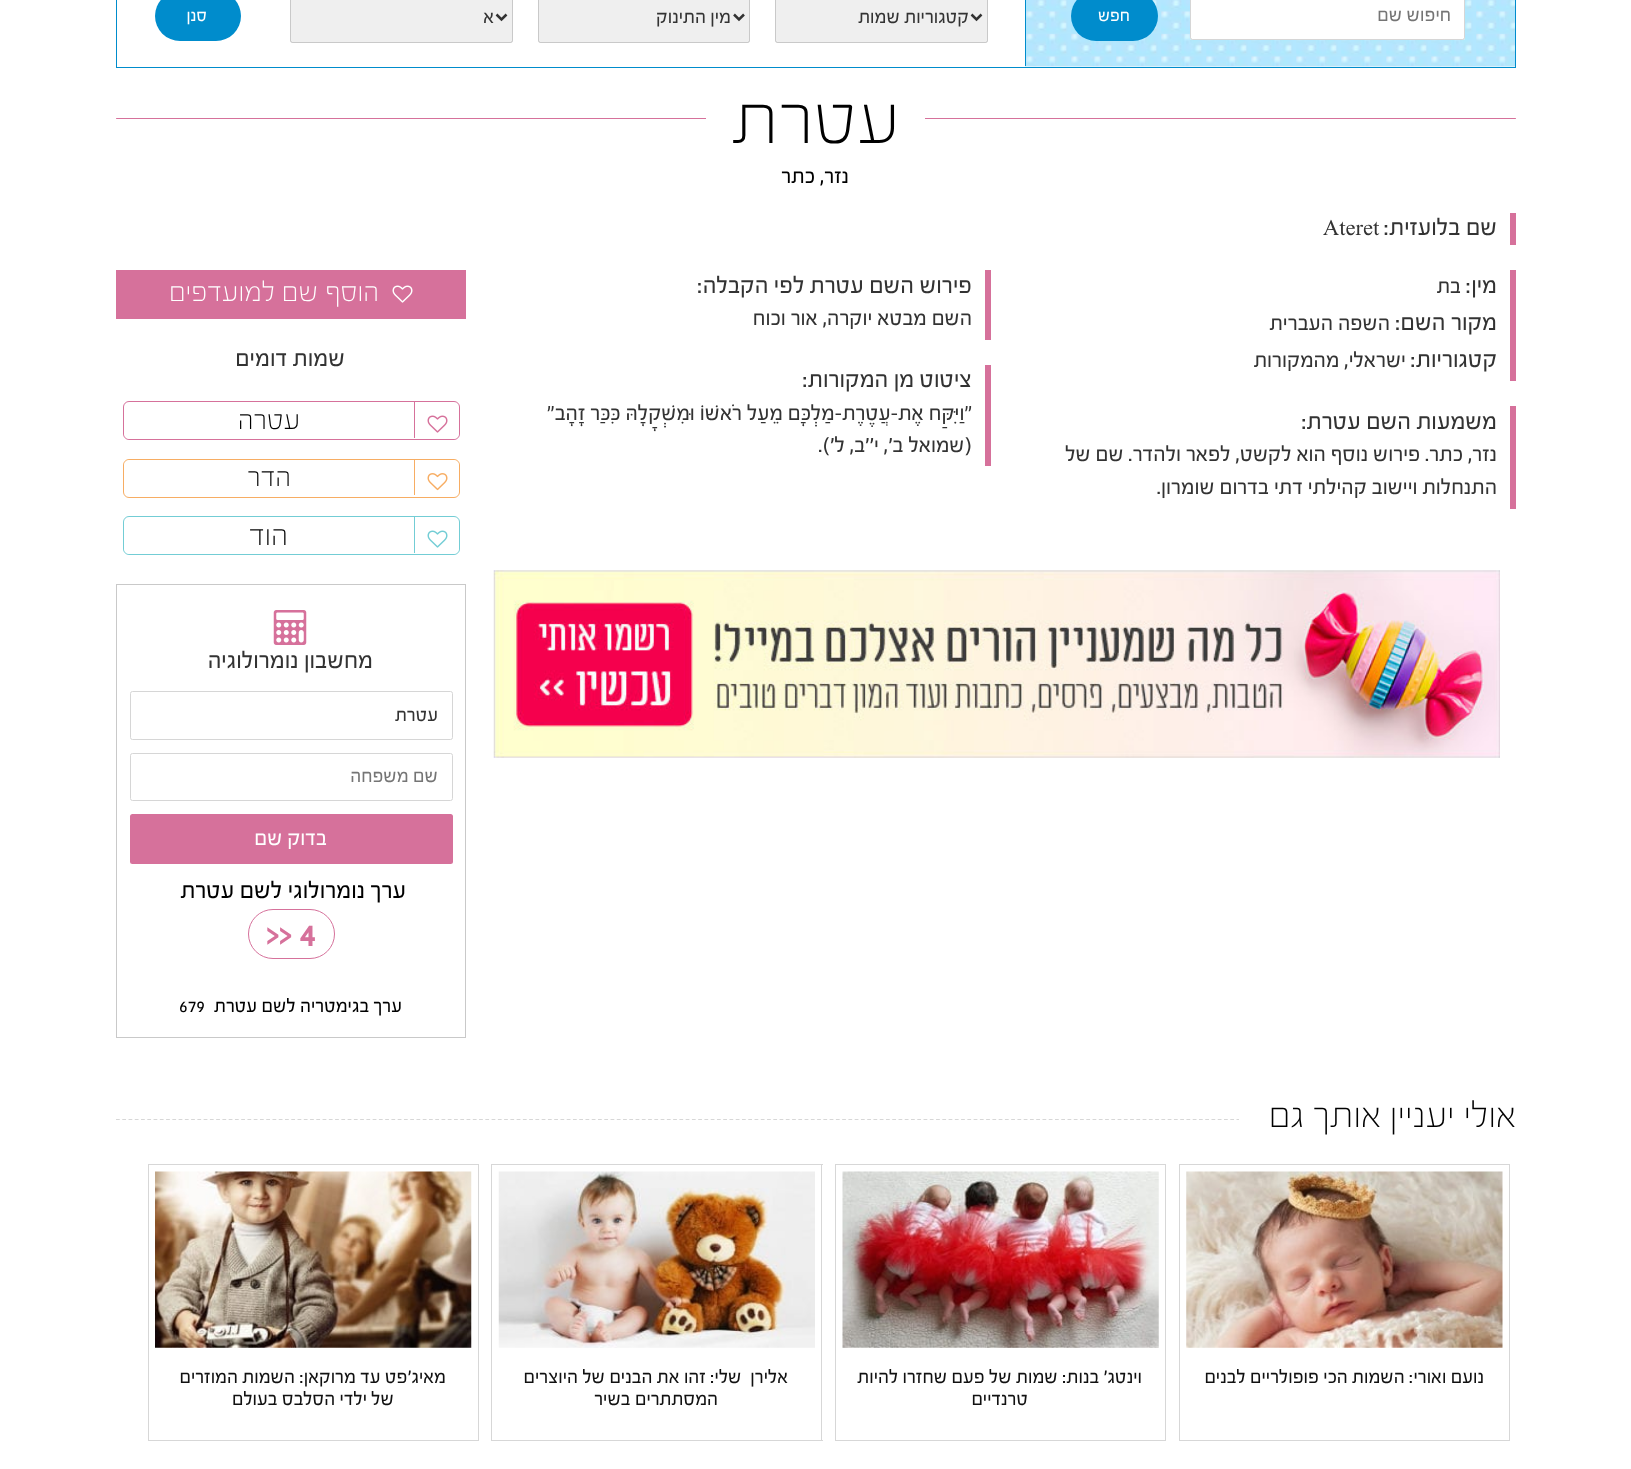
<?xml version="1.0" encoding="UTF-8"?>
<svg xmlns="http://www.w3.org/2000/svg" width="1631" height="1469">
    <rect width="100%" height="100%" fill="#FFFFFF"/>
    <rect x="116.5" y="-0.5" width="1399" height="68" fill="none" stroke="#008CCC"/>
    <image x="1025" y="0" width="490" height="67" href="img_01.png"/>
    <rect x="1025" y="0" width="1" height="66" fill="#008CCC"/>
    <rect x="1190" y="-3" width="275" height="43" rx="2.5" fill="#FFFFFF"/>
    <rect x="1190.5" y="-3.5" width="274" height="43" rx="2" fill="none" stroke="#333333" stroke-opacity="0.2"/>
    <text x="1451" y="21" font-family="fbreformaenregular" font-size="20" direction="rtl" fill="#757575">חיפוש שם</text>
    <rect x="1071" y="-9" width="87" height="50" rx="25" fill="#008CCC"/>
    <text x="1130" y="21" font-family="fbreformaenregular" font-size="18" direction="rtl" fill="#FFFFFF">חפש</text>
    <rect x="775" y="-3" width="213" height="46" rx="2.5" fill="#EFEFEF"/>
    <rect x="775.5" y="-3.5" width="212" height="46" rx="2" fill="none" stroke="#333333" stroke-opacity="0.2"/>
    <path d="M 971.5 14.5 L 976.5 19.5 L 981.5 14.5" fill="none" stroke="#333333" stroke-width="2.5"/>
    <text x="969" y="23" font-family="fbreformaenregular" font-size="20" direction="rtl" fill="#333333">קטגוריות שמות</text>
    <rect x="538" y="-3" width="212" height="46" rx="2.5" fill="#EFEFEF"/>
    <rect x="538.5" y="-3.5" width="211" height="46" rx="2" fill="none" stroke="#333333" stroke-opacity="0.2"/>
    <path d="M 734 14.5 L 739 19.5 L 744 14.5" fill="none" stroke="#333333" stroke-width="2.5"/>
    <text x="731" y="23" font-family="fbreformaenregular" font-size="20" direction="rtl" fill="#333333">מין התינוק</text>
    <rect x="290" y="-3" width="223" height="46" rx="2.5" fill="#EFEFEF"/>
    <rect x="290.5" y="-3.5" width="222" height="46" rx="2" fill="none" stroke="#333333" stroke-opacity="0.2"/>
    <path d="M 496.5 14.5 L 501.5 19.5 L 506.5 14.5" fill="none" stroke="#333333" stroke-width="2.5"/>
    <text x="494" y="23" font-family="fbreformaenregular" font-size="20" direction="rtl" fill="#333333">א</text>
    <rect x="155" y="-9" width="86" height="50" rx="25" fill="#008CCC"/>
    <text x="207" y="21" font-family="fbreformaenregular" font-size="18" direction="rtl" fill="#FFFFFF">סנן</text>
    <rect x="116" y="118" width="1400" height="1" rx="0.5" fill="#D6719B"/>
    <rect x="706" y="118" width="219" height="1" fill="#FFFFFF"/>
    <text x="900" y="143" font-family="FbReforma" font-size="75" direction="rtl" fill="#000000">עטרת</text>
    <text x="849" y="183" font-family="fbreformaenregular" font-size="22.5" direction="rtl" fill="#000000">נזר, כתר</text>
    <rect x="1510" y="213" width="6" height="32" fill="#D6719B"/>
    <text x="1497" y="235" font-family="fbreformaenregular" font-size="25" direction="rtl" fill="#333333">שם בלועזית:</text>
    <text x="1323" y="235" font-family="fbreformaenregular" font-size="22.5" fill="#333333">Ateret</text>
    <rect x="1510" y="270" width="6" height="111" fill="#D6719B"/>
    <text x="1497" y="293" font-family="fbreformaenregular" font-size="25" direction="rtl" fill="#333333">מין:</text>
    <text x="1461" y="293" font-family="fbreformaenregular" font-size="22.5" direction="rtl" fill="#333333">בת</text>
    <text x="1497" y="330" font-family="fbreformaenregular" font-size="25" direction="rtl" fill="#333333">מקור השם:</text>
    <text x="1390" y="330" font-family="fbreformaenregular" font-size="22.5" direction="rtl" fill="#333333">השפה העברית</text>
    <text x="1497" y="367" font-family="fbreformaenregular" font-size="25" direction="rtl" fill="#333333">קטגוריות:</text>
    <text x="1406" y="367" font-family="fbreformaenregular" font-size="22.5" direction="rtl" fill="#333333">ישראלי, מהמקורות</text>
    <rect x="1510" y="406" width="6" height="103" fill="#D6719B"/>
    <text x="1497" y="429" font-family="fbreformaenregular" font-size="25" direction="rtl" fill="#333333">משמעות השם עטרת:</text>
    <text font-family="fbreformaenregular" font-size="22.5" direction="rtl" fill="#333333">
        <tspan x="1497" y="461">נזר, כתר. פירוש נוסף הוא לקשט, לפאר ולהדר. שם של</tspan>
        <tspan x="1497" y="494">התנחלות ויישוב קהילתי דתי בדרום שומרון.</tspan>
    </text>
    <rect x="985" y="270" width="6" height="70" fill="#D6719B"/>
    <text x="972" y="293" font-family="fbreformaenregular" font-size="25" direction="rtl" fill="#333333">פירוש השם עטרת לפי הקבלה:</text>
    <text x="972" y="325" font-family="fbreformaenregular" font-size="22.5" direction="rtl" fill="#333333">השם מבטא יוקרה, אור וכוח</text>
    <rect x="985" y="365" width="6" height="101" fill="#D6719B"/>
    <text x="972" y="387" font-family="fbreformaenregular" font-size="25" direction="rtl" fill="#333333">ציטוט מן המקורות:</text>
    <text font-family="fbreformaenregular" font-size="22.5" direction="rtl" fill="#333333">
        <tspan x="972" y="420">"וַיִּקַּח אֶת-עֲטֶרֶת-מַלְכָּם מֵעַל רֹאשׁוֹ וּמִשְׁקָלָהּ כִּכַּר זָהָב"</tspan>
        <tspan x="972" y="452">(שמואל ב', י''ב, ל').</tspan>
    </text>
    <image x="493" y="570" width="1007" height="188" href="img_02.png"/>
    <rect x="116" y="270" width="350" height="49" fill="#D6719B"/>
    <image x="392" y="285" width="21" height="18" href="img_03.png"/>
    <text x="379" y="301" font-family="FbReforma" font-size="28.75" direction="rtl" fill="#FFFFFF">הוסף שם למועדפים</text>
    <text x="345" y="366" font-family="fbreformaenregular" font-size="25" direction="rtl" fill="#333333">שמות דומים</text>
    <rect x="123.5" y="401.5" width="336" height="38" rx="5.5" fill="none" stroke="#D6719B"/>
    <rect x="124" y="403" width="335" height="36" rx="6" fill="#FFFFFF"/>
    <rect x="414" y="401" width="1" height="37" fill="#D6719B"/>
    <image x="427" y="415" width="21" height="18" href="img_04.png"/>
    <text x="300" y="429" font-family="FbReforma" font-size="28.75" direction="rtl" fill="#000000">עטרה</text>
    <rect x="123.5" y="459.5" width="336" height="38" rx="5.5" fill="none" stroke="#F7AD63"/>
    <rect x="124" y="460" width="335" height="36" rx="6" fill="#FFFFFF"/>
    <rect x="414" y="459" width="1" height="36" fill="#F7AD63"/>
    <image x="427" y="473" width="21" height="18" href="img_05.png"/>
    <text x="291" y="486" font-family="FbReforma" font-size="28.75" direction="rtl" fill="#000000">הדר</text>
    <rect x="123.5" y="516.5" width="336" height="38" rx="5.5" fill="none" stroke="#73CDD5"/>
    <rect x="124" y="518" width="335" height="36" rx="6" fill="#FFFFFF"/>
    <rect x="414" y="516" width="1" height="37" fill="#73CDD5"/>
    <image x="427" y="530" width="21" height="18" href="img_06.png"/>
    <text x="288" y="545" font-family="FbReforma" font-size="31" direction="rtl" fill="#000000">הוד</text>
    <rect x="116.5" y="584.5" width="349" height="453" fill="none" stroke="#C9C9C9"/>
    <image x="273" y="610" width="34" height="35" href="img_07.png"/>
    <text x="373" y="668" font-family="fbreformaenregular" font-size="25" direction="rtl" fill="#333333">מחשבון נומרולוגיה</text>
    <rect x="130.5" y="691.5" width="322" height="48" rx="2" fill="none" stroke="#D6D6D6"/>
    <text x="438" y="721" font-family="fbreformaenregular" font-size="20" direction="rtl" fill="#333333">עטרת</text>
    <rect x="130.5" y="753.5" width="322" height="47" rx="2" fill="none" stroke="#D6D6D6"/>
    <text x="438" y="782" font-family="fbreformaenregular" font-size="20" direction="rtl" fill="#757575">שם משפחה</text>
    <rect x="130" y="814" width="323" height="50" rx="2.5" fill="#D6719B"/>
    <text x="327" y="845" font-family="fbreformaenregular" font-size="22.5" direction="rtl" fill="#FFFFFF">בדוק שם</text>
    <text x="406" y="898" font-family="fbreformaenregular" font-size="25" direction="rtl" fill="#000000">ערך נומרולוגי לשם עטרת</text>
    <rect x="248.5" y="909.5" width="86" height="49" rx="24.5" fill="none" stroke="#D6719B"/>
    <text x="299" y="946" font-family="fbreformaenregular" font-size="37.5" font-weight="700" fill="#D6719B">4</text>
    <text x="266" y="946" font-family="fbreformaenregular" font-size="37.5" font-weight="700" fill="#D6719B">&gt;&gt;</text>
    <text x="402" y="1012" font-family="fbreformaenregular" font-size="20" direction="rtl" fill="#000000">ערך בגימטריה לשם עטרת</text>
    <text x="179" y="1012" font-family="fbreformaenregular" font-size="20" fill="#000000">679</text>
    <path d="M 116 1119.5 H 1516" fill="none" stroke="#D7D7D7" stroke-width="1.2" stroke-dasharray="3.75 2.51"/>
    <rect x="1239" y="1118" width="277" height="3" fill="#FFFFFF"/>
    <text x="1516" y="1127" font-family="FbReforma" font-size="37.5" direction="rtl" fill="#000000">אולי יעניין אותך גם</text>
    <rect x="1179" y="1164" width="331" height="1" fill="#D7D7D7"/>
    <rect x="1509" y="1164" width="1" height="190" fill="#D7D7D7"/>
    <rect x="1179" y="1164" width="1" height="190" fill="#D7D7D7"/>
    <image x="1186" y="1171" width="317" height="177" href="img_08.png"/>
    <rect x="1509" y="1354" width="1" height="87" fill="#D7D7D7"/>
    <rect x="1179" y="1440" width="331" height="1" fill="#D7D7D7"/>
    <rect x="1179" y="1354" width="1" height="87" fill="#D7D7D7"/>
    <text x="1484" y="1383" font-family="fbreformaenregular" font-size="20" direction="rtl" fill="#111111">נועם ואורי: השמות הכי פופולריים לבנים</text>
    <rect x="835" y="1164" width="331" height="1" fill="#D7D7D7"/>
    <rect x="1165" y="1164" width="1" height="190" fill="#D7D7D7"/>
    <rect x="835" y="1164" width="1" height="190" fill="#D7D7D7"/>
    <image x="842" y="1171" width="317" height="177" href="img_09.png"/>
    <rect x="1165" y="1354" width="1" height="87" fill="#D7D7D7"/>
    <rect x="835" y="1440" width="331" height="1" fill="#D7D7D7"/>
    <rect x="835" y="1354" width="1" height="87" fill="#D7D7D7"/>
    <text x="1142" y="1383" font-family="fbreformaenregular" font-size="20" direction="rtl" fill="#111111">וינטג' בנות: שמות של פעם שחזרו להיות</text>
    <text x="1028" y="1405" font-family="fbreformaenregular" font-size="20" direction="rtl" fill="#111111">טרנדיים</text>
    <rect x="491" y="1164" width="332" height="1" fill="#D7D7D7"/>
    <rect x="821" y="1164" width="1" height="190" fill="#D7D7D7"/>
    <rect x="491" y="1164" width="1" height="190" fill="#D7D7D7"/>
    <image x="498" y="1171" width="317" height="177" href="img_10.png"/>
    <rect x="821" y="1354" width="1" height="87" fill="#D7D7D7"/>
    <rect x="491" y="1440" width="332" height="1" fill="#D7D7D7"/>
    <rect x="491" y="1354" width="1" height="87" fill="#D7D7D7"/>
    <text x="788" y="1383" font-family="fbreformaenregular" font-size="20" direction="rtl" fill="#111111" xml:space="preserve">אלירן  שלי: זהו את הבנים של היוצרים</text>
    <text x="718" y="1405" font-family="fbreformaenregular" font-size="20" direction="rtl" fill="#111111">המסתתרים בשיר</text>
    <rect x="148" y="1164" width="331" height="1" fill="#D7D7D7"/>
    <rect x="478" y="1164" width="1" height="190" fill="#D7D7D7"/>
    <rect x="148" y="1164" width="1" height="190" fill="#D7D7D7"/>
    <image x="155" y="1171" width="317" height="177" href="img_11.png"/>
    <rect x="478" y="1354" width="1" height="87" fill="#D7D7D7"/>
    <rect x="148" y="1440" width="331" height="1" fill="#D7D7D7"/>
    <rect x="148" y="1354" width="1" height="87" fill="#D7D7D7"/>
    <text x="446" y="1383" font-family="fbreformaenregular" font-size="20" direction="rtl" fill="#111111">מאיג'פט עד מרוקאן: השמות המוזרים</text>
    <text x="394" y="1405" font-family="fbreformaenregular" font-size="20" direction="rtl" fill="#111111">של ילדי הסלבס בעולם</text>
</svg>
